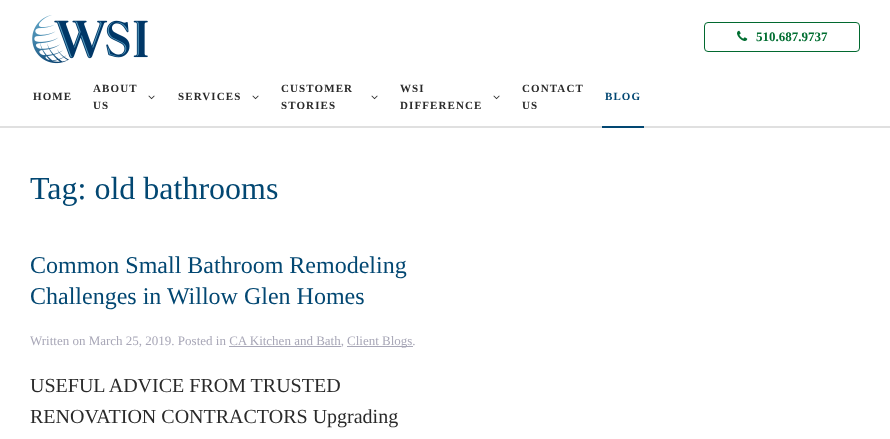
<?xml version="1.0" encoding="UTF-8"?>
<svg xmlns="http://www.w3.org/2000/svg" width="890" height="439">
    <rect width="100%" height="100%" fill="#FFFFFF"/>
    <rect x="704.5" y="22.5" width="155" height="29" rx="3.5" fill="none" stroke="#01692F"/>
    <image x="737" y="30" width="11" height="11" href="img_01.png"/>
    <text x="756" y="41" font-family="Liberation Serif" font-size="13" font-weight="700" fill="#016E31">510.687.9737</text>
    <rect x="0" y="126" width="890" height="2" fill="#E0E0E0"/>
    <image x="32" y="15" width="116" height="49" href="img_02.png"/>
    <text x="33" y="100" font-family="Liberation Serif" font-size="11" font-weight="700" letter-spacing="1.1" fill="#2A2A2A">HOME</text>
    <text x="93" y="92" font-family="Liberation Serif" font-size="11" font-weight="700" letter-spacing="1.1" fill="#2A2A2A">ABOUT</text>
    <image x="148" y="95" width="7" height="5" href="img_03.png"/>
    <text x="93" y="109" font-family="Liberation Serif" font-size="11" font-weight="700" letter-spacing="1.1" fill="#2A2A2A">US</text>
    <text x="178" y="100" font-family="Liberation Serif" font-size="11" font-weight="700" letter-spacing="1.1" fill="#2A2A2A">SERVICES</text>
    <image x="252" y="95" width="7" height="5" href="img_03.png"/>
    <text x="281" y="92" font-family="Liberation Serif" font-size="11" font-weight="700" letter-spacing="1.1" fill="#2A2A2A">CUSTOMER</text>
    <image x="371" y="95" width="7" height="5" href="img_03.png"/>
    <text x="281" y="109" font-family="Liberation Serif" font-size="11" font-weight="700" letter-spacing="1.1" fill="#2A2A2A">STORIES</text>
    <text x="400" y="92" font-family="Liberation Serif" font-size="11" font-weight="700" letter-spacing="1.1" fill="#2A2A2A">WSI</text>
    <image x="493" y="95" width="7" height="5" href="img_03.png"/>
    <text x="400" y="109" font-family="Liberation Serif" font-size="11" font-weight="700" letter-spacing="1.1" fill="#2A2A2A">DIFFERENCE</text>
    <text font-family="Liberation Serif" font-size="11" font-weight="700" letter-spacing="1.1" fill="#2A2A2A">
        <tspan x="522" y="92">CONTACT</tspan>
        <tspan x="522" y="109">US</tspan>
    </text>
    <text x="605" y="100" font-family="Liberation Serif" font-size="11" font-weight="700" letter-spacing="1.1" fill="#024772">BLOG</text>
    <rect x="602" y="126" width="42" height="2" fill="#024772"/>
    <text x="30" y="199" font-family="Liberation Serif" font-size="32" fill="#024772">Tag: old bathrooms</text>
    <text font-family="Liberation Serif" font-size="24" fill="#024772">
        <tspan x="30" y="273">Common Small Bathroom Remodeling</tspan>
        <tspan x="30" y="304">Challenges in Willow Glen Homes</tspan>
    </text>
    <text x="30" y="345" font-family="Liberation Serif" font-size="13" fill="#A8A7B7">Written on March 25, 2019. Posted in CA Kitchen and Bath,</text>
    <rect x="347" y="346" width="66" height="1" fill="#A8A7B7"/>
    <text x="347" y="345" font-family="Liberation Serif" font-size="13" fill="#A8A7B7">Client Blogs.</text>
    <rect x="229" y="346" width="112" height="1" fill="#A8A7B7"/>
    <text font-family="Liberation Serif" font-size="20" fill="#2A2A2A">
        <tspan x="30" y="392">USEFUL ADVICE FROM TRUSTED</tspan>
        <tspan x="30" y="423">RENOVATION CONTRACTORS Upgrading</tspan>
    </text>
</svg>
